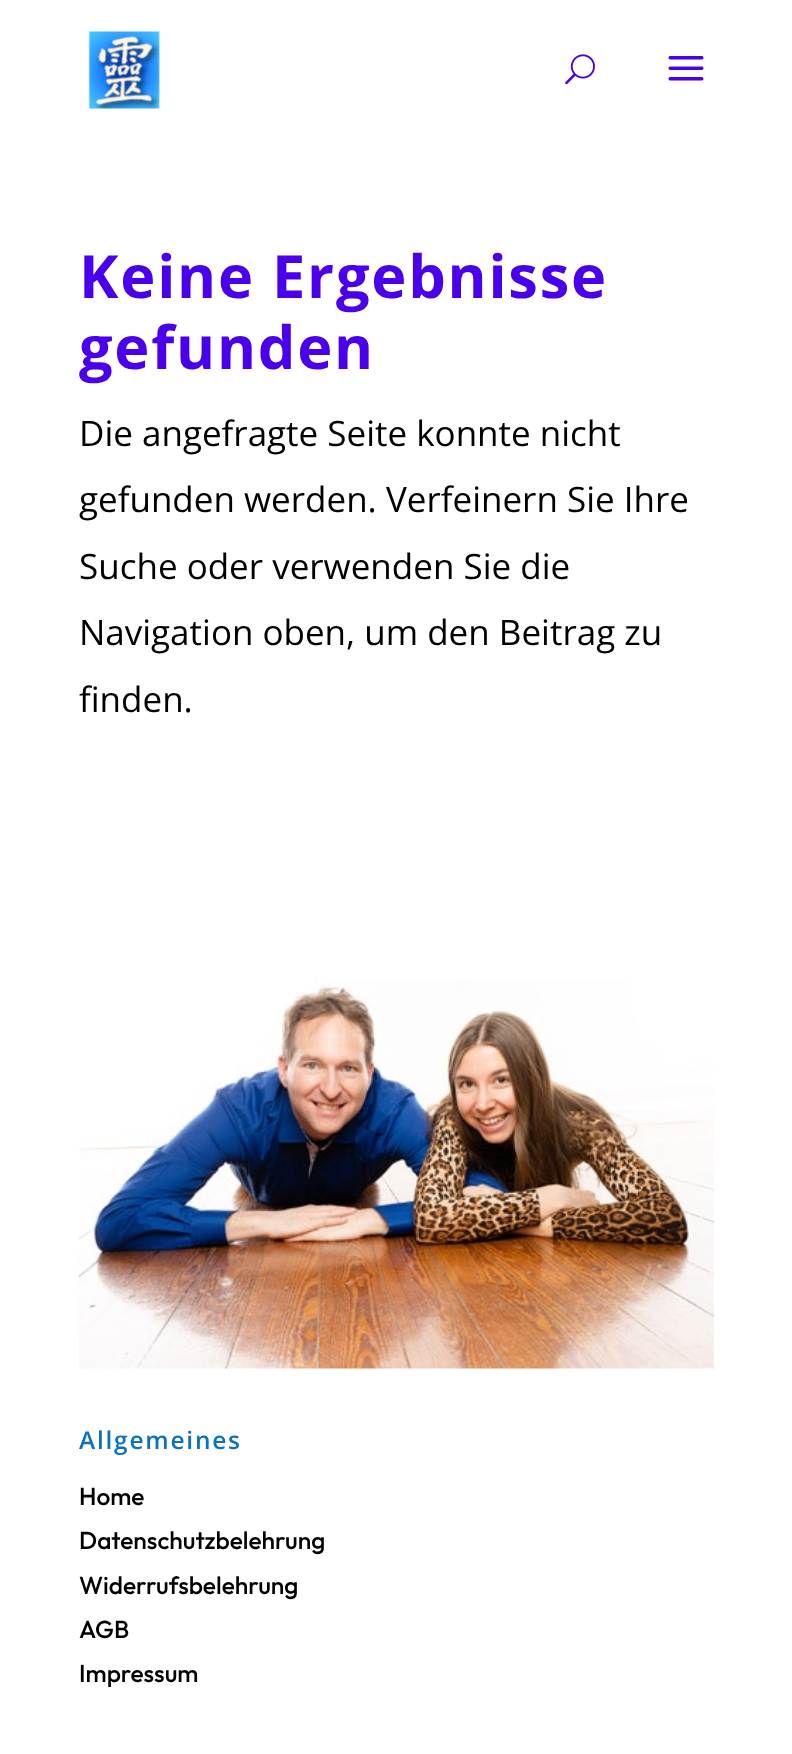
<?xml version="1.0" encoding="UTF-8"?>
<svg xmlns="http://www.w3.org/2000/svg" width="792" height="1754">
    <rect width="100%" height="100%" fill="#FFFFFF"/>
    <image x="88" y="31" width="72" height="78" href="img_01.png"/>
    <image x="565" y="54" width="30" height="31" href="img_02.png"/>
    <image x="668" y="56" width="36" height="25" href="img_03.png"/>
    <text font-family="Open Sans" font-size="59.5" font-weight="700" letter-spacing="1.75" fill="#4A00EB">
        <tspan x="79" y="298">Keine Ergebnisse</tspan>
        <tspan x="79" y="369">gefunden</tspan>
    </text>
    <text font-family="Open Sans" font-size="35" fill="#000000">
        <tspan x="79" y="446">Die angefragte Seite konnte nicht</tspan>
        <tspan x="79" y="512">gefunden werden. Verfeinern Sie Ihre</tspan>
        <tspan x="79" y="579">Suche oder verwenden Sie die</tspan>
        <tspan x="79" y="645">Navigation oben, um den Beitrag zu</tspan>
        <tspan x="79" y="712">finden.</tspan>
    </text>
    <image x="78" y="980" width="636" height="389" href="img_04.png"/>
    <text x="79" y="1449" font-family="Open Sans" font-size="24.5" font-weight="600" letter-spacing="1.75" fill="#0C71C3">Allgemeines</text>
    <text font-family="Outfit" font-size="24.5" font-weight="500" fill="#000000">
        <tspan x="79" y="1505">Home</tspan>
        <tspan x="79" y="1549">Datenschutzbelehrung</tspan>
        <tspan x="79" y="1594">Widerrufsbelehrung</tspan>
        <tspan x="79" y="1638">AGB</tspan>
        <tspan x="79" y="1682">Impressum</tspan>
    </text>
</svg>
